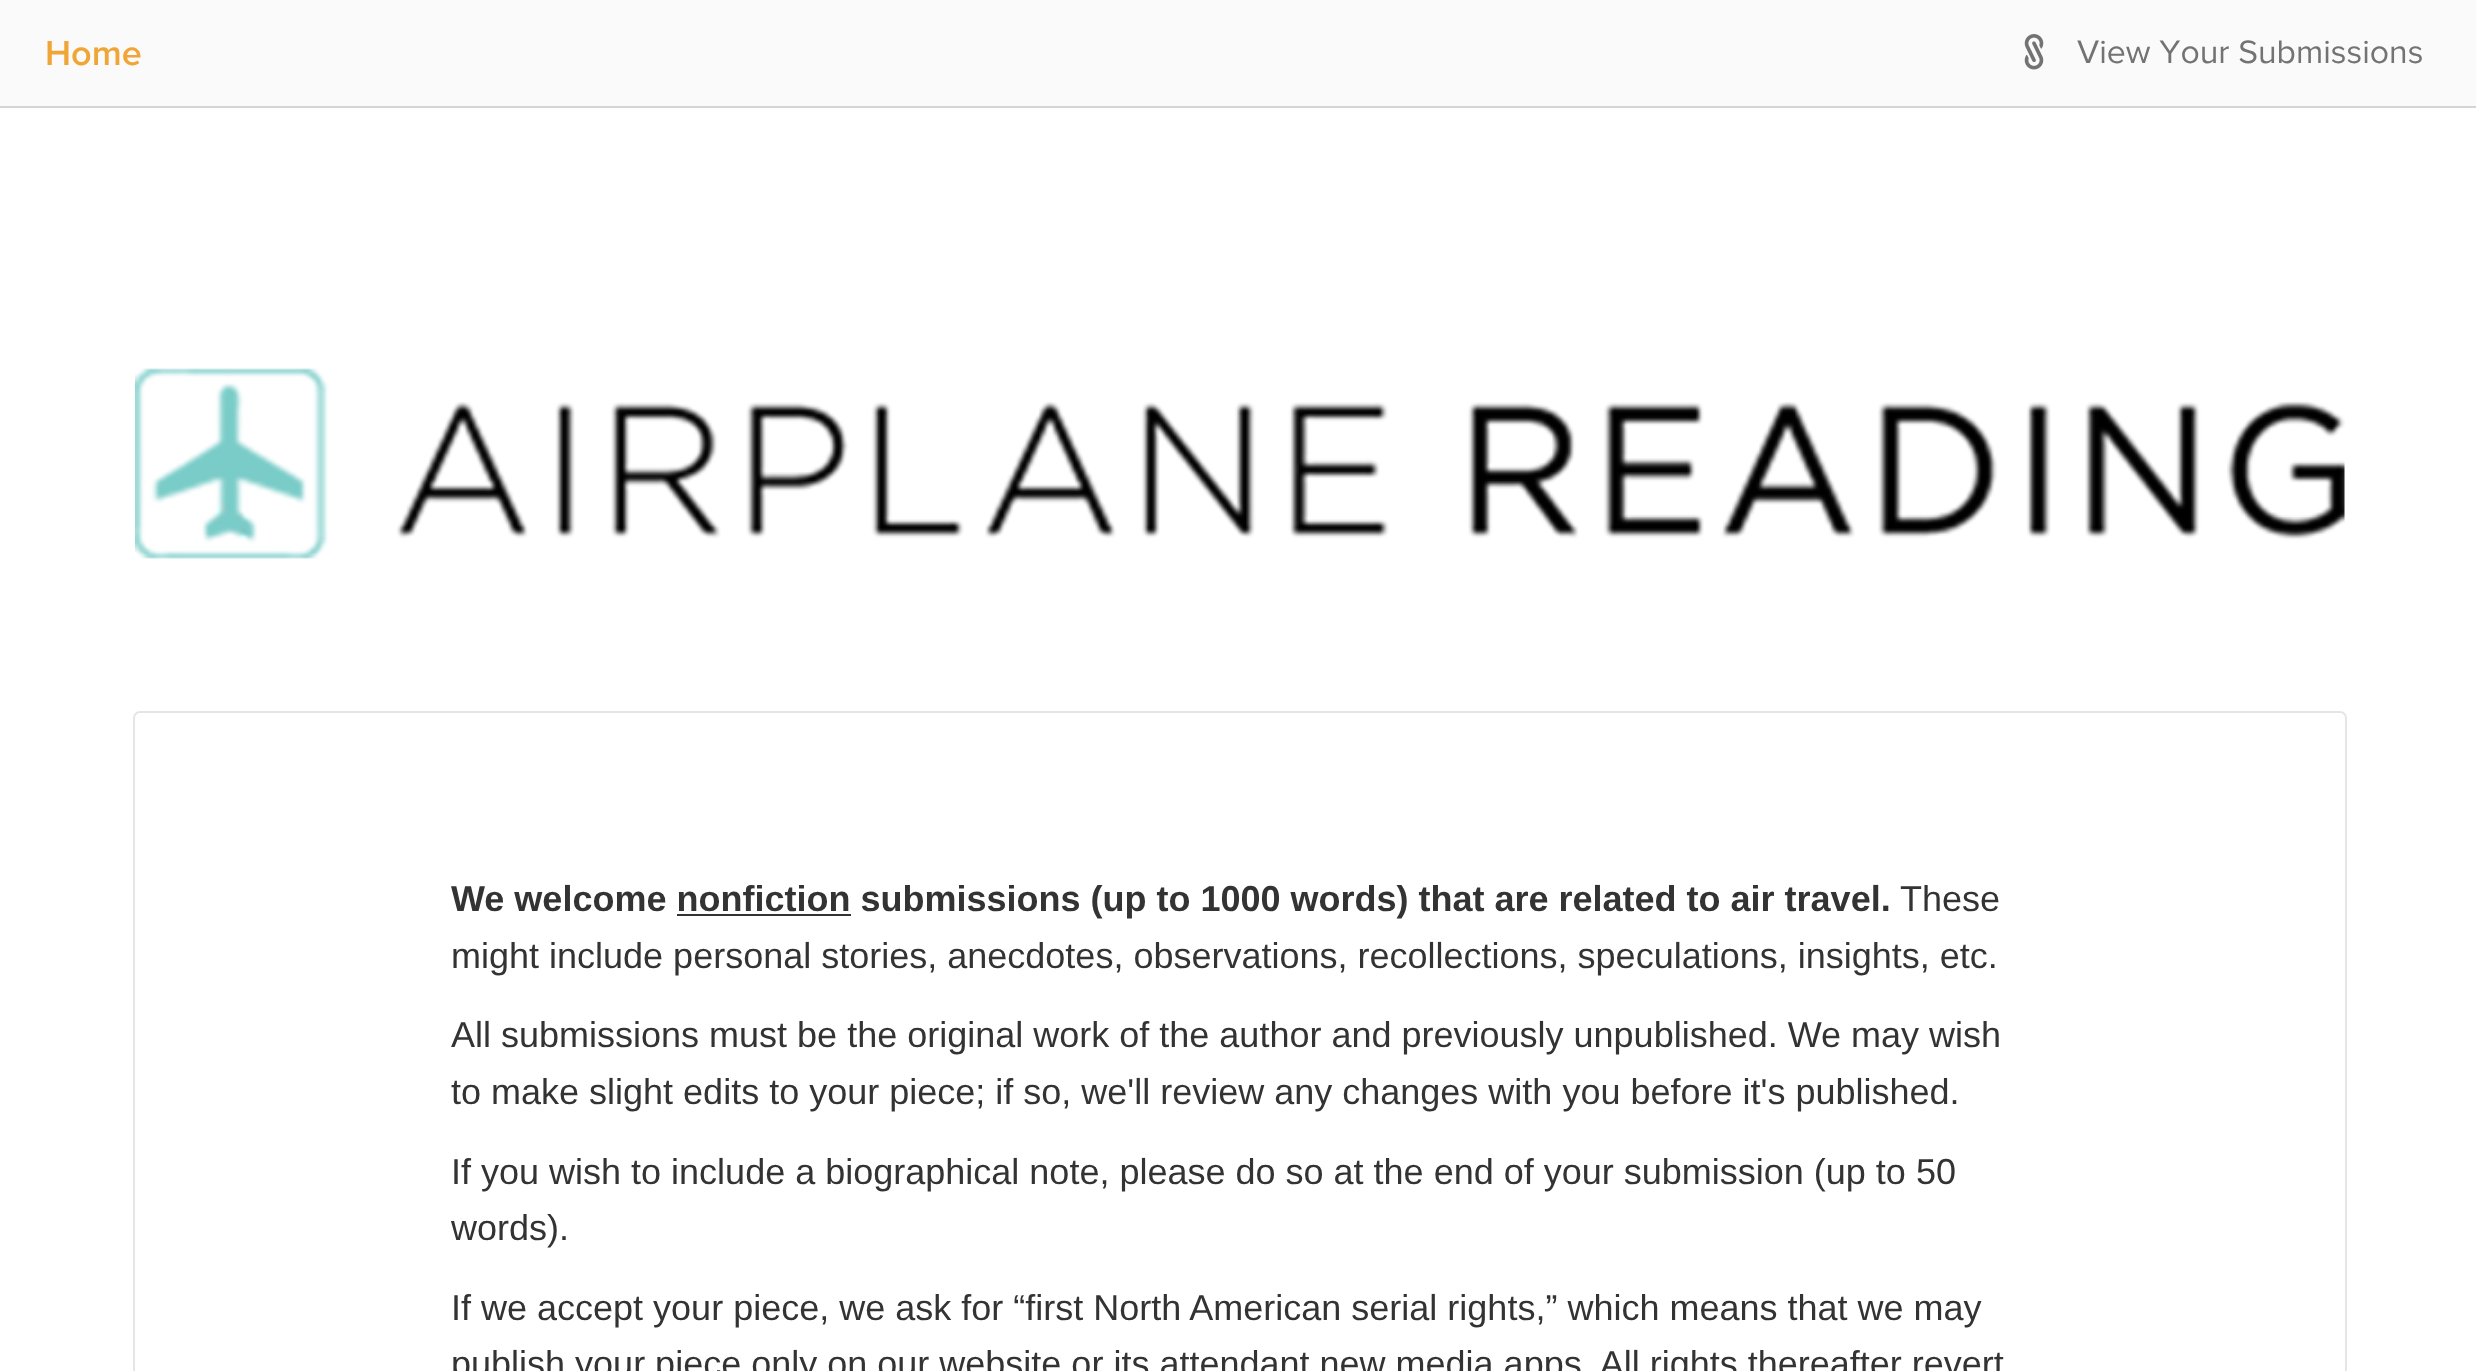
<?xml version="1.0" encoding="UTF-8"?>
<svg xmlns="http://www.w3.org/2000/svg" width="2476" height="1371">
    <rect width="100%" height="100%" fill="#FFFFFF"/>
    <rect x="0" y="0" width="2476" height="106" fill="#FAFAFA"/>
    <rect x="0" y="106" width="2476" height="2" fill="#D5D5D5"/>
    <text x="45" y="65" font-family="'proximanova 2'" font-size="36" fill="#F0A637">Home</text>
    <image x="2024" y="34" width="20" height="36" href="img_01.png"/>
    <text x="2077" y="63" font-family="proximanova" font-size="33.75" fill="#737373">View Your Submissions</text>
    <image x="135" y="368" width="2210" height="191" href="img_02.png"/>
    <rect x="134" y="712" width="2212" height="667" rx="6" fill="none" stroke="#E5E5E5" stroke-width="2"/>
    <text x="451" y="911" font-family="Liberation Sans" font-size="36" font-weight="700" fill="#333333">We welcome nonfiction submissions (up to 1000 words) that are related to air travel.</text>
    <text x="1900" y="911" font-family="Liberation Sans" font-size="36" fill="#333333">These</text>
    <rect x="677" y="914" width="174" height="2" fill="#333333"/>
    <text x="451" y="968" font-family="Liberation Sans" font-size="36" fill="#333333">might include personal stories, anecdotes, observations, recollections, speculations, insights, etc.</text>
    <text font-family="Liberation Sans" font-size="36" fill="#333333">
        <tspan x="451" y="1047">All submissions must be the original work of the author and previously unpublished. We may wish</tspan>
        <tspan x="451" y="1104">to make slight edits to your piece; if so, we'll review any changes with you before it's published.</tspan>
    </text>
    <text font-family="Liberation Sans" font-size="36" fill="#333333">
        <tspan x="451" y="1184">If you wish to include a biographical note, please do so at the end of your submission (up to 50</tspan>
        <tspan x="451" y="1240">words).</tspan>
    </text>
    <text font-family="Liberation Sans" font-size="36" fill="#333333">
        <tspan x="451" y="1320">If we accept your piece, we ask for “first North American serial rights,” which means that we may</tspan>
        <tspan x="451" y="1376">publish your piece only on our website or its attendant new media apps. All rights thereafter revert</tspan>
    </text>
</svg>
